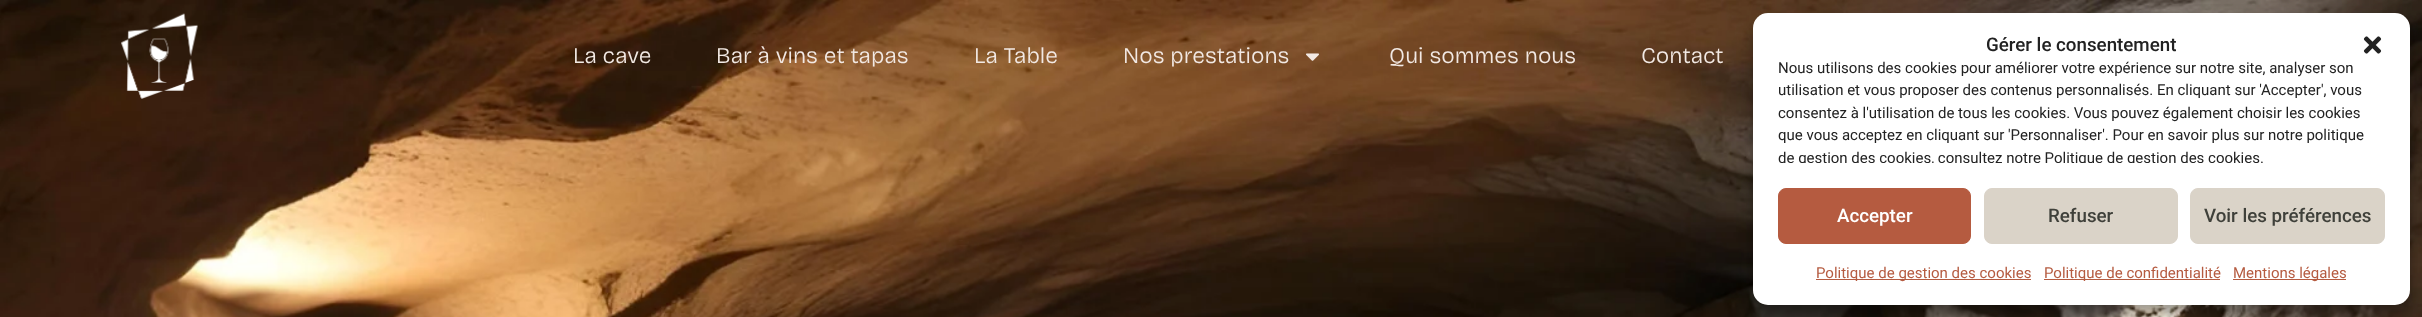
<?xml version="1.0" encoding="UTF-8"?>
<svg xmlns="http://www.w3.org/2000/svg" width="2422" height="317">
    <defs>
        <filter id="blur1" x="-50%" y="-200%" width="200%" height="500%"><feGaussianBlur stdDeviation="4"/></filter>
        <filter id="blur2" x="-50%" y="-200%" width="200%" height="500%"><feGaussianBlur stdDeviation="12.5"/></filter>
        <clipPath id="clip1"><rect x="1778" y="56" width="607" height="107"/></clipPath>
    </defs>
    <rect width="100%" height="100%" fill="#FFFFFF"/>
    <image x="0" y="0" width="2422" height="317" href="img_01.png"/>
    <image x="121" y="13" width="77" height="86" href="img_02.png"/>
    <text x="573" y="63" font-family="Bricolage Grotesque" font-size="22.5" font-weight="300" fill="#F2E9E4">La cave</text>
    <text x="716" y="63" font-family="Bricolage Grotesque" font-size="22.5" font-weight="300" fill="#F2E9E4">Bar à vins et tapas</text>
    <text x="974" y="63" font-family="Bricolage Grotesque" font-size="22.5" font-weight="300" fill="#F2E9E4">La Table</text>
    <text x="1123" y="63" font-family="Bricolage Grotesque" font-size="22.5" font-weight="300" fill="#F2E9E4">Nos prestations</text>
    <image x="1306" y="53" width="13" height="8" href="img_03.png"/>
    <text x="1389" y="63" font-family="Bricolage Grotesque" font-size="22.5" font-weight="300" fill="#F2E9E4">Qui sommes nous</text>
    <text x="1641" y="63" font-family="Bricolage Grotesque" font-size="22.5" font-weight="300" fill="#F2E9E4">Contact</text>
    <rect x="1753" y="20" width="657" height="293" rx="15" fill="#000000" fill-opacity="0.23" filter="url(#blur1)"/>
    <rect x="1753" y="25" width="657" height="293" rx="15" fill="#000000" fill-opacity="0.19" filter="url(#blur2)"/>
    <rect x="1753" y="13" width="657" height="292" rx="15" fill="#FFFFFF"/>
    <text x="1986" y="51" font-family="Roboto" font-size="18.75" font-weight="500" fill="#222222">Gérer le consentement</text>
    <image x="2363" y="36" width="19" height="18" href="img_04.png"/>
    <text font-family="Roboto" font-size="15" fill="#222222">
        <tspan x="1778" y="73">Nous utilisons des cookies pour améliorer votre expérience sur notre site, analyser son</tspan>
        <tspan x="1778" y="95">utilisation et vous proposer des contenus personnalisés. En cliquant sur 'Accepter', vous</tspan>
        <tspan x="1778" y="118">consentez à l'utilisation de tous les cookies. Vous pouvez également choisir les cookies</tspan>
        <tspan x="1778" y="140">que vous acceptez en cliquant sur 'Personnaliser'. Pour en savoir plus sur notre politique</tspan>
    </text>
    <g clip-path="url(#clip1)">
        <text x="1778" y="163" font-family="Roboto" font-size="15" fill="#222222">de gestion des cookies, consultez notre Politique de gestion des cookies.</text>
    </g>
    <rect x="1778.5" y="188.5" width="192" height="55" rx="7.5" fill="#B55B40" stroke="#B55B40"/>
    <text x="1837" y="222" font-family="Roboto" font-size="18.75" font-weight="500" fill="#FFFFFF">Accepter</text>
    <rect x="1984.5" y="188.5" width="193" height="55" rx="7.5" fill="#DAD3C8" stroke="#DAD3C8"/>
    <text x="2048" y="222" font-family="Roboto" font-size="18.75" font-weight="500" fill="#3F403A">Refuser</text>
    <rect x="2190.5" y="188.5" width="194" height="55" rx="7.5" fill="#DAD3C8" stroke="#DAD3C8"/>
    <text x="2204" y="222" font-family="Roboto" font-size="18.75" font-weight="500" fill="#3F403A">Voir les préférences</text>
    <rect x="1816" y="279" width="215" height="1" fill="#B55B40"/>
    <text x="1816" y="278" font-family="Roboto" font-size="15" fill="#B55B40">Politique de gestion des cookies</text>
    <rect x="2044" y="279" width="176" height="1" fill="#B55B40"/>
    <text x="2044" y="278" font-family="Roboto" font-size="15" fill="#B55B40">Politique de confidentialité</text>
    <rect x="2233" y="279" width="113" height="1" fill="#B55B40"/>
    <text x="2233" y="278" font-family="Roboto" font-size="15" fill="#B55B40">Mentions légales</text>
</svg>
